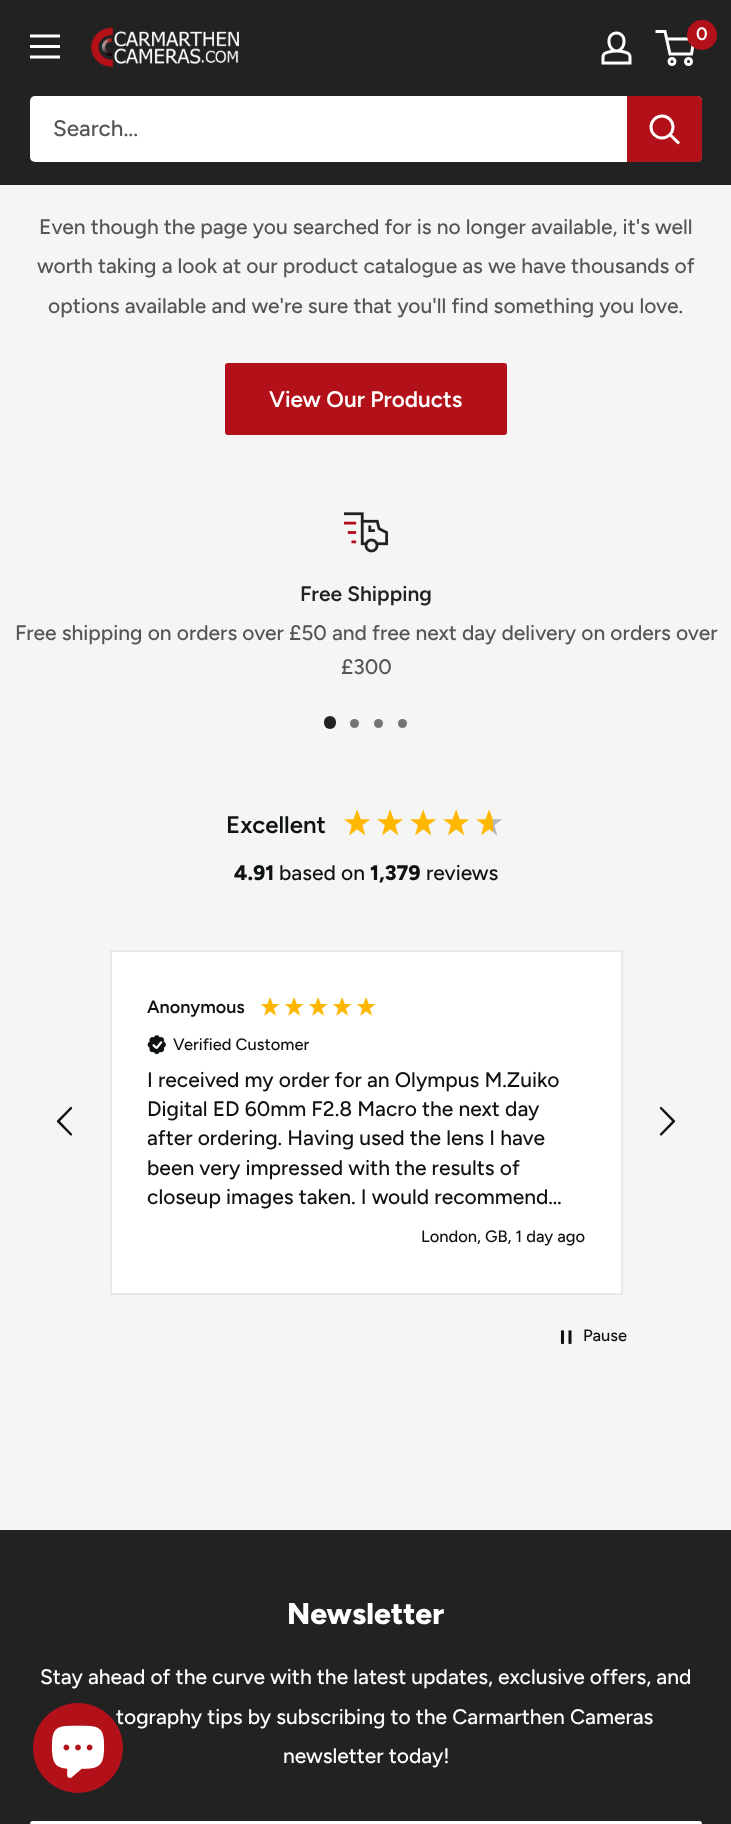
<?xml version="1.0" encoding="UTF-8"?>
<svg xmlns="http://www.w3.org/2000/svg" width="731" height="1824">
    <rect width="100%" height="100%" fill="#F5F5F5"/>
    <rect x="0" y="0" width="731" height="185" fill="#222222"/>
    <image x="30" y="34" width="30" height="25" href="img_01.png"/>
    <image x="90" y="27" width="149" height="41" href="img_02.png"/>
    <image x="601" y="31" width="31" height="34" href="img_03.png"/>
    <circle cx="672" cy="61.5" r="3" fill="none" stroke="#FFFFFF" stroke-width="3"/>
    <circle cx="688.5" cy="61.5" r="3" fill="none" stroke="#FFFFFF" stroke-width="3"/>
    <path d="M 666.5 39 H 694 L 691.5 54 H 670 L 665 31.5 H 655.5" fill="none" stroke="#FFFFFF" stroke-width="3"/>
    <circle cx="702" cy="35" r="15" fill="#B31119"/>
    <text x="696" y="40" font-family="Figtree" font-size="18" font-weight="600" fill="#FFFFFF">0</text>
    <rect x="30" y="96" width="672" height="66" rx="5" fill="#FFFFFF"/>
    <text x="53" y="136" font-family="Figtree" font-size="22.5" font-weight="500" fill="#555555">Search...</text>
    <path d="M 627 96 H 697 C 700 96 702 98 702 101 V 157 C 702 160 700 162 697 162 H 627 Z" fill="#B31119"/>
    <path d="M 678 142.5 L 670.5 135" fill="none" stroke="#FFFFFF" stroke-width="3" stroke-linecap="square"/>
    <circle cx="662" cy="127" r="11" fill="none" stroke="#FFFFFF" stroke-width="3"/>
    <text x="39" y="234" font-family="Figtree" font-size="21" font-weight="500" fill="#555555">Even though the page you searched for is no longer available, it's well</text>
    <text x="37" y="273" font-family="Figtree" font-size="21" font-weight="500" fill="#555555">worth taking a look at our product catalogue as we have thousands of</text>
    <text x="48" y="313" font-family="Figtree" font-size="21" font-weight="500" fill="#555555">options available and we're sure that you'll find something you love.</text>
    <rect x="225" y="363" width="282" height="72" rx="3" fill="#B31119"/>
    <text x="269" y="407" font-family="Figtree" font-size="22.5" font-weight="600" fill="#FFFFFF">View Our Products</text>
    <image x="344" y="512" width="45" height="41" href="img_04.png"/>
    <text x="300" y="601" font-family="Figtree" font-size="21" font-weight="600" fill="#222222">Free Shipping</text>
    <text x="15" y="640" font-family="Figtree" font-size="21" font-weight="500" fill="#555555">Free shipping on orders over £50 and free next day delivery on orders over</text>
    <text x="341" y="674" font-family="Figtree" font-size="21" font-weight="500" fill="#555555">£300</text>
    <rect x="324" y="716" width="12" height="13" rx="6" fill="#222222"/>
    <circle cx="354.5" cy="723.5" r="4.5" fill="#757575"/>
    <circle cx="378.5" cy="723.5" r="4.5" fill="#757575"/>
    <circle cx="402.5" cy="723.5" r="4.5" fill="#757575"/>
    <text x="226" y="833" font-family="Figtree" font-size="24" font-weight="600" fill="#0E1311">Excellent</text>
    <image x="344" y="809" width="26" height="27" href="img_05.png"/>
    <image x="377" y="809" width="26" height="27" href="img_05.png"/>
    <image x="410" y="809" width="26" height="27" href="img_05.png"/>
    <image x="443" y="809" width="26" height="27" href="img_05.png"/>
    <image x="476" y="809" width="26" height="27" href="img_06.png"/>
    <text x="234" y="880" font-family="Figtree" font-size="21" font-weight="800" fill="#0E1311">4.91</text>
    <text x="279" y="880" font-family="Figtree" font-size="21" font-weight="500" fill="#0E1311">based on</text>
    <text x="370" y="880" font-family="Figtree" font-size="21" font-weight="800" fill="#0E1311">1,379</text>
    <text x="426" y="880" font-family="Figtree" font-size="21" font-weight="500" fill="#0E1311">reviews</text>
    <image x="56" y="1106" width="17" height="30" href="img_07.png"/>
    <rect x="111" y="951" width="511" height="343" fill="#FFFFFF" stroke="#E8E8E8" stroke-width="2"/>
    <text x="147" y="1013" font-family="Figtree" font-size="18" font-weight="600" fill="#0E1311">Anonymous</text>
    <image x="260" y="997" width="20" height="19" href="img_08.png"/>
    <image x="284" y="997" width="20" height="19" href="img_08.png"/>
    <image x="308" y="997" width="20" height="19" href="img_08.png"/>
    <image x="332" y="997" width="20" height="19" href="img_08.png"/>
    <image x="356" y="997" width="20" height="19" href="img_08.png"/>
    <image x="147" y="1035" width="19" height="20" href="img_09.png"/>
    <text x="173" y="1050" font-family="Figtree" font-size="16.5" font-weight="500" fill="#0E1311">Verified Customer</text>
    <text font-family="Figtree" font-size="21" font-weight="500" fill="#0E1311">
        <tspan x="147" y="1087">I received my order for an Olympus M.Zuiko</tspan>
        <tspan x="147" y="1116">Digital ED 60mm F2.8 Macro the next day</tspan>
        <tspan x="147" y="1145">after ordering. Having used the lens I have</tspan>
        <tspan x="147" y="1175">been very impressed with the results of</tspan>
        <tspan x="147" y="1204">closeup images taken. I would recommend…</tspan>
    </text>
    <text x="421" y="1242" font-family="Figtree" font-size="16.5" font-weight="500" fill="#0E1311">London, GB, 1 day ago</text>
    <image x="659" y="1106" width="17" height="30" href="img_10.png"/>
    <image x="560" y="1330" width="12" height="14" href="img_11.png"/>
    <text x="583" y="1341" font-family="Figtree" font-size="16.5" font-weight="500" fill="#0E1311">Pause</text>
    <rect x="0" y="1530" width="731" height="294" fill="#222222"/>
    <text x="287" y="1624" font-family="Figtree" font-size="30" font-weight="800" fill="#FFFFFF">Newsletter</text>
    <text x="40" y="1684" font-family="Figtree" font-size="21" font-weight="500" fill="#FFFFFF">Stay ahead of the curve with the latest updates, exclusive offers, and</text>
    <text x="116" y="1724" font-family="Figtree" font-size="21" font-weight="500" fill="#FFFFFF">tography tips by subscribing to the Carmarthen Cameras</text>
    <text x="283" y="1763" font-family="Figtree" font-size="21" font-weight="500" fill="#FFFFFF">newsletter today!</text>
    <rect x="30" y="1821" width="672" height="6" rx="3" fill="#FFFFFF"/>
    <path d="M 33 1822 H 699 C 701 1822 702 1824 702 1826 C 702 1824 702 1821 699 1821 H 33 C 30 1821 30 1824 30 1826 C 30 1824 31 1822 33 1822 Z" fill="#E8E8E8" fill-opacity="0.25"/>
    <circle cx="78" cy="1748" r="45" fill="#B31119"/>
    <image x="51" y="1725" width="54" height="53" href="img_12.png"/>
</svg>
